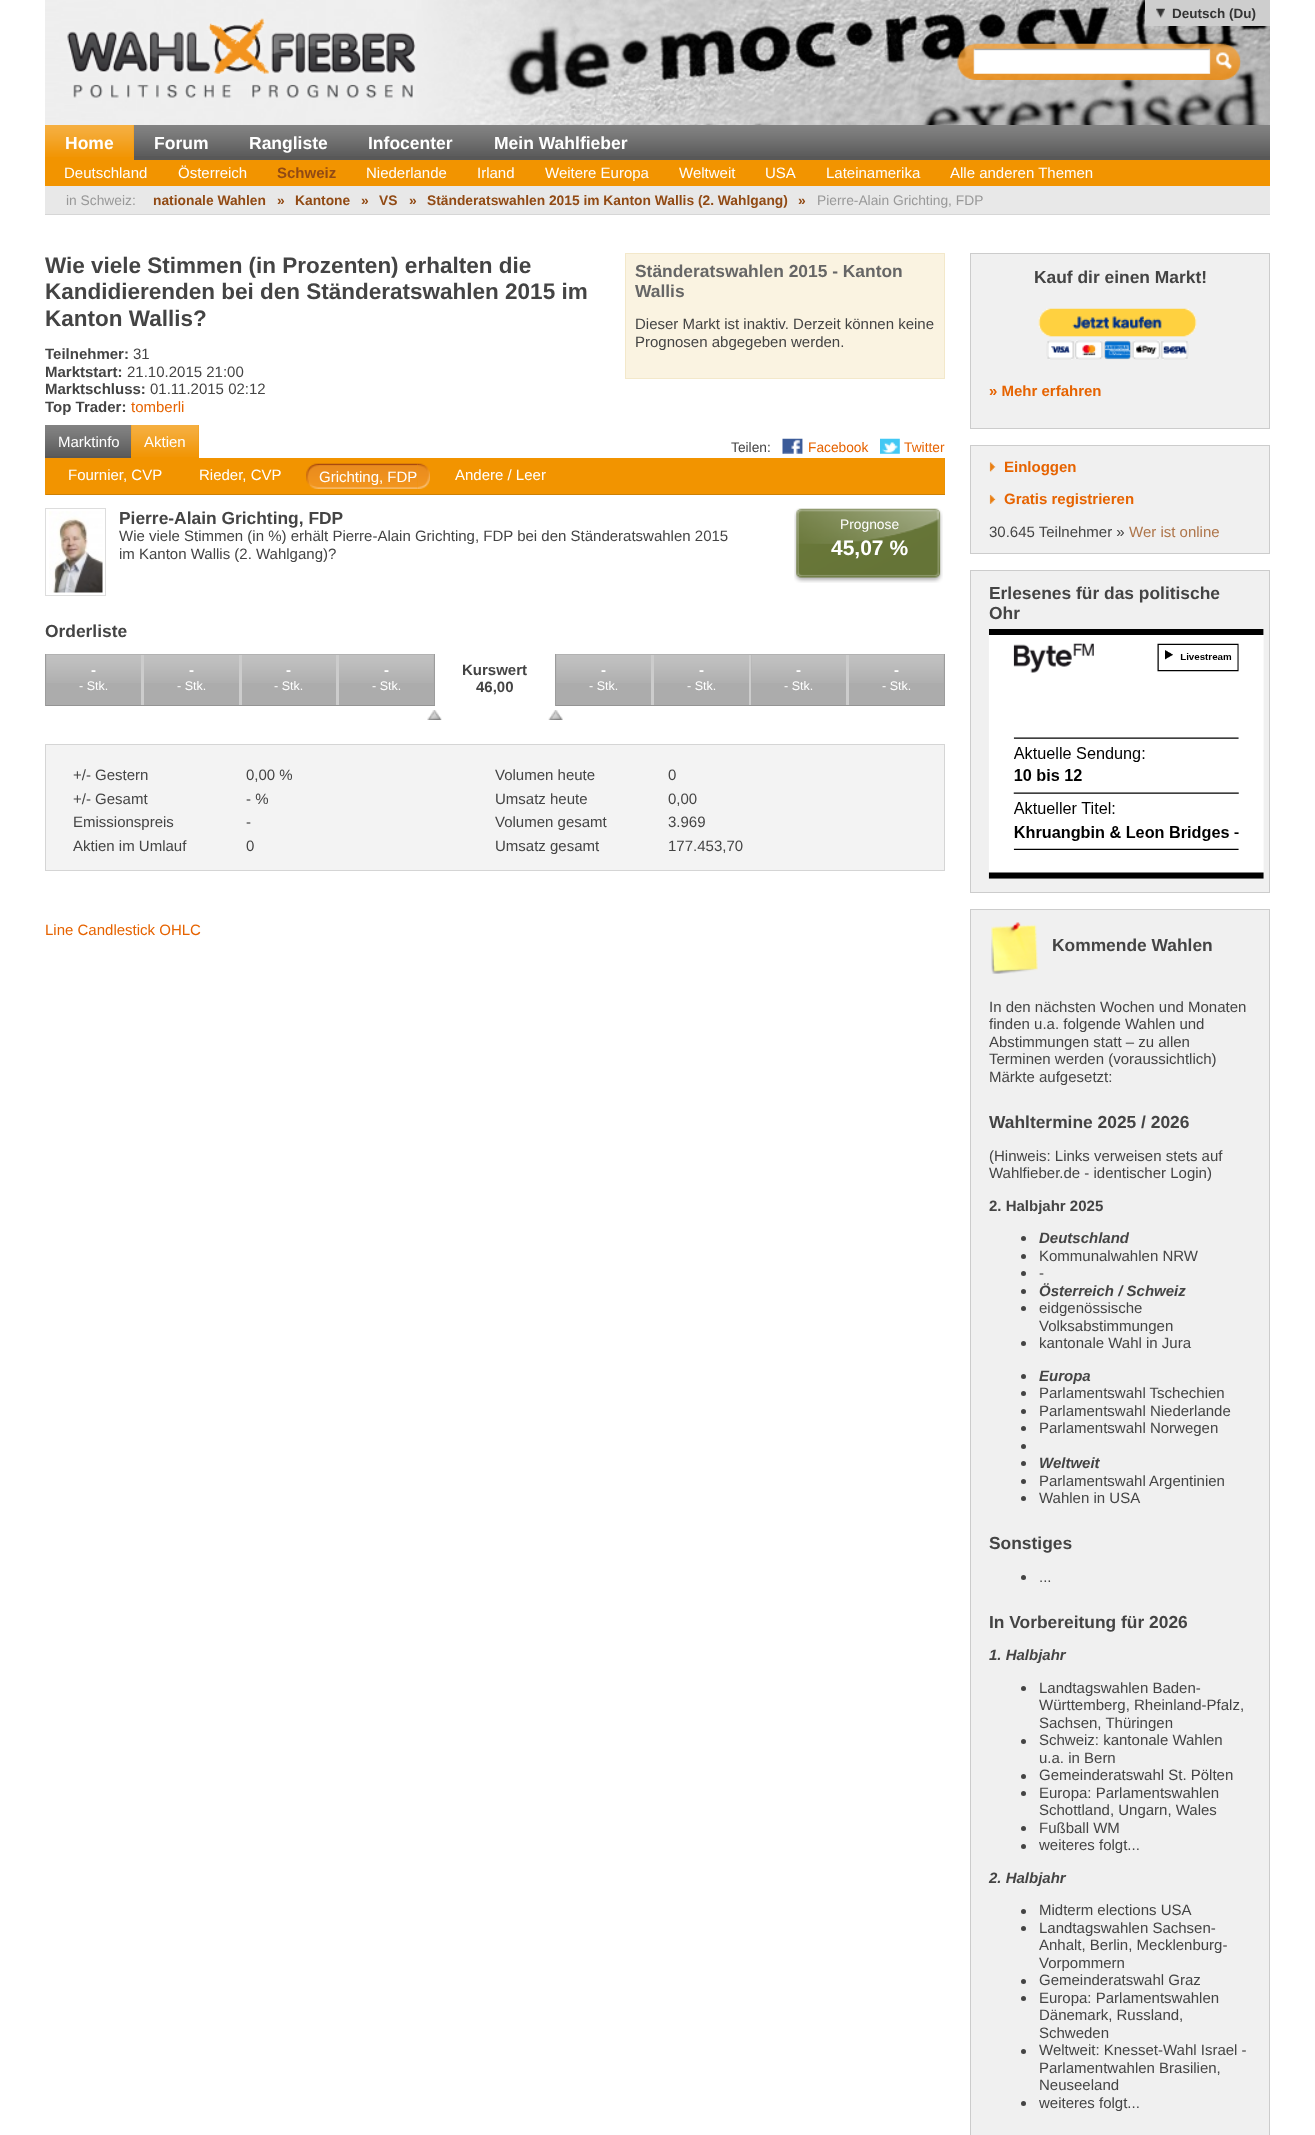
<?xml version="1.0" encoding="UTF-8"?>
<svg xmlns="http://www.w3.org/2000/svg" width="1315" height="2135">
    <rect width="100%" height="100%" fill="#FFFFFF"/>
    <image x="45" y="0" width="1225" height="125" href="img_01.png"/>
    <rect x="1145" y="0" width="125" height="26" fill="#CECECE"/>
    <image x="1156" y="8" width="9" height="10" href="img_02.png"/>
    <text x="1172" y="18" font-family="Liberation Sans" font-size="13.5" font-weight="700" fill="#333333">Deutsch (Du)</text>
    <image x="67" y="18" width="349" height="80" href="img_03.png"/>
    <image x="957" y="43" width="284" height="37" href="img_04.png"/>
    <rect x="134" y="125" width="1136" height="35" fill="#585858"/>
    <image x="134" y="125" width="1136" height="31" href="img_05.png"/>
    <rect x="45" y="125" width="89" height="35" fill="#F29400"/>
    <image x="45" y="125" width="89" height="32" href="img_06.png"/>
    <text x="65" y="149" font-family="Liberation Sans" font-size="17.5" font-weight="700" fill="#FFFFFF">Home</text>
    <text x="154" y="149" font-family="Liberation Sans" font-size="17.5" font-weight="700" fill="#FFFFFF">Forum</text>
    <text x="249" y="149" font-family="Liberation Sans" font-size="17.5" font-weight="700" fill="#FFFFFF">Rangliste</text>
    <text x="368" y="149" font-family="Liberation Sans" font-size="17.5" font-weight="700" fill="#FFFFFF">Infocenter</text>
    <text x="494" y="149" font-family="Liberation Sans" font-size="17.5" font-weight="700" fill="#FFFFFF">Mein Wahlfieber</text>
    <rect x="45" y="160" width="1225" height="26" fill="#F29400"/>
    <text x="64" y="178" font-family="Liberation Sans" font-size="15" fill="#FFFFFF">Deutschland</text>
    <text x="178" y="178" font-family="Liberation Sans" font-size="15" fill="#FFFFFF">Österreich</text>
    <text x="277" y="178" font-family="Liberation Sans" font-size="15" font-weight="700" fill="#914A14">Schweiz</text>
    <text x="366" y="178" font-family="Liberation Sans" font-size="15" fill="#FFFFFF">Niederlande</text>
    <text x="477" y="178" font-family="Liberation Sans" font-size="15" fill="#FFFFFF">Irland</text>
    <text x="545" y="178" font-family="Liberation Sans" font-size="15" fill="#FFFFFF">Weitere Europa</text>
    <text x="679" y="178" font-family="Liberation Sans" font-size="15" fill="#FFFFFF">Weltweit</text>
    <text x="765" y="178" font-family="Liberation Sans" font-size="15" fill="#FFFFFF">USA</text>
    <text x="826" y="178" font-family="Liberation Sans" font-size="15" fill="#FFFFFF">Lateinamerika</text>
    <text x="950" y="178" font-family="Liberation Sans" font-size="15" fill="#FFFFFF">Alle anderen Themen</text>
    <rect x="45" y="186" width="1225" height="28" fill="#E8E8E8"/>
    <rect x="45" y="214" width="1225" height="1" fill="#D6D6D6"/>
    <text x="66" y="205" font-family="Liberation Sans" font-size="13.8" fill="#999999">in Schweiz:</text>
    <text x="153" y="205" font-family="Liberation Sans" font-size="13.8" font-weight="700" fill="#914A14">nationale Wahlen</text>
    <text x="277" y="205" font-family="Liberation Sans" font-size="13.8" font-weight="700" fill="#914A14">»</text>
    <text x="295" y="205" font-family="Liberation Sans" font-size="13.8" font-weight="700" fill="#914A14">Kantone</text>
    <text x="361" y="205" font-family="Liberation Sans" font-size="13.8" font-weight="700" fill="#914A14">»</text>
    <text x="379" y="205" font-family="Liberation Sans" font-size="13.8" font-weight="700" fill="#914A14">VS</text>
    <text x="409" y="205" font-family="Liberation Sans" font-size="13.8" font-weight="700" fill="#914A14">»</text>
    <text x="427" y="205" font-family="Liberation Sans" font-size="13.8" font-weight="700" fill="#914A14">Ständeratswahlen 2015 im Kanton Wallis (2. Wahlgang)</text>
    <text x="798" y="205" font-family="Liberation Sans" font-size="13.8" font-weight="700" fill="#914A14">»</text>
    <text x="817" y="205" font-family="Liberation Sans" font-size="13.8" fill="#999999">Pierre-Alain Grichting, FDP</text>
    <text font-family="Liberation Sans" font-size="22.5" font-weight="700" fill="#444444">
        <tspan x="45" y="273">Wie viele Stimmen (in Prozenten) erhalten die</tspan>
        <tspan x="45" y="299">Kandidierenden bei den Ständeratswahlen 2015 im</tspan>
        <tspan x="45" y="326">Kanton Wallis?</tspan>
    </text>
    <text x="45" y="359" font-family="Liberation Sans" font-size="15" font-weight="700" fill="#444444">Teilnehmer:</text>
    <text x="133" y="359" font-family="Liberation Sans" font-size="15" fill="#444444">31</text>
    <text x="45" y="377" font-family="Liberation Sans" font-size="15" font-weight="700" fill="#444444">Marktstart:</text>
    <text x="127" y="377" font-family="Liberation Sans" font-size="15" fill="#444444">21.10.2015 21:00</text>
    <text x="45" y="394" font-family="Liberation Sans" font-size="15" font-weight="700" fill="#444444">Marktschluss:</text>
    <text x="150" y="394" font-family="Liberation Sans" font-size="15" fill="#444444">01.11.2015 02:12</text>
    <text x="45" y="412" font-family="Liberation Sans" font-size="15" font-weight="700" fill="#444444">Top Trader:</text>
    <text x="131" y="412" font-family="Liberation Sans" font-size="15" fill="#E66300">tomberli</text>
    <rect x="625.5" y="253.5" width="319" height="125" fill="#FAF3E1" stroke="#F3E8CA"/>
    <text font-family="Liberation Sans" font-size="17.4" font-weight="700" fill="#666666">
        <tspan x="635" y="277">Ständeratswahlen 2015 - Kanton</tspan>
        <tspan x="635" y="297">Wallis</tspan>
    </text>
    <text font-family="Liberation Sans" font-size="15" fill="#444444">
        <tspan x="635" y="329">Dieser Markt ist inaktiv. Derzeit können keine</tspan>
        <tspan x="635" y="347">Prognosen abgegeben werden.</tspan>
    </text>
    <rect x="45" y="425" width="86" height="33" fill="#585858"/>
    <image x="45" y="425" width="86" height="31" href="img_07.png"/>
    <text x="58" y="447" font-family="Liberation Sans" font-size="15" fill="#FFFFFF">Marktinfo</text>
    <rect x="131" y="425" width="68" height="33" fill="#F29400"/>
    <image x="131" y="425" width="68" height="32" href="img_08.png"/>
    <text x="144" y="447" font-family="Liberation Sans" font-size="15" fill="#FFFFFF">Aktien</text>
    <text x="731" y="452" font-family="Liberation Sans" font-size="13.75" fill="#444444">Teilen:</text>
    <image x="782" y="438" width="21" height="16" href="img_09.png"/>
    <text x="808" y="452" font-family="Liberation Sans" font-size="13.75" fill="#E66300">Facebook</text>
    <image x="880" y="438" width="20" height="16" href="img_10.png"/>
    <text x="904" y="452" font-family="Liberation Sans" font-size="13.75" fill="#E66300">Twitter</text>
    <rect x="46" y="458" width="898" height="36" fill="#F29400"/>
    <rect x="944" y="458" width="1" height="37" fill="#EC9204"/>
    <rect x="45" y="494" width="900" height="1" fill="#CD8005"/>
    <rect x="45" y="458" width="1" height="37" fill="#EC9204"/>
    <text x="68" y="480" font-family="Liberation Sans" font-size="15" fill="#FFFFFF">Fournier, CVP</text>
    <text x="199" y="480" font-family="Liberation Sans" font-size="15" fill="#FFFFFF">Rieder, CVP</text>
    <image x="417" y="463" width="13" height="26" href="img_11.png"/>
    <image x="306" y="463" width="112" height="26" href="img_12.png"/>
    <text x="319" y="482" font-family="Liberation Sans" font-size="15" fill="#FFFFFF">Grichting, FDP</text>
    <text x="455" y="480" font-family="Liberation Sans" font-size="15" fill="#FFFFFF">Andere / Leer</text>
    <rect x="45.5" y="508.5" width="60" height="87" fill="none" stroke="#DDDDDD"/>
    <image x="49" y="511" width="54" height="82" href="img_13.png"/>
    <text x="119" y="524" font-family="Liberation Sans" font-size="17.4" font-weight="700" fill="#444444">Pierre-Alain Grichting, FDP</text>
    <text font-family="Liberation Sans" font-size="15" fill="#444444">
        <tspan x="119" y="541">Wie viele Stimmen (in %) erhält Pierre-Alain Grichting, FDP bei den Ständeratswahlen 2015</tspan>
        <tspan x="119" y="559">im Kanton Wallis (2. Wahlgang)?</tspan>
    </text>
    <image x="794" y="508" width="149" height="75" href="img_14.png"/>
    <text x="840" y="529" font-family="Liberation Sans" font-size="13.8" fill="#FFFFFF">Prognose</text>
    <text x="831" y="555" font-family="Liberation Sans" font-size="21" font-weight="700" fill="#FFFFFF">45,07 %</text>
    <text x="45" y="637" font-family="Liberation Sans" font-size="17.4" font-weight="700" fill="#444444">Orderliste</text>
    <rect x="45" y="654" width="390" height="1" fill="#B2B2B2"/>
    <rect x="434" y="654" width="1" height="52" fill="#9C9C9C"/>
    <rect x="45" y="705" width="390" height="1" fill="#949494"/>
    <rect x="45" y="654" width="1" height="52" fill="#9C9C9C"/>
    <rect x="46" y="655" width="95" height="50" fill="#ACACAC"/>
    <image x="46" y="655" width="95" height="28" href="img_15.png"/>
    <rect x="141" y="655" width="3" height="50" fill="#CCCCCC"/>
    <text x="91" y="675" font-family="Liberation Sans" font-size="15" font-weight="700" fill="#FFFFFF">-</text>
    <text x="79" y="690" font-family="Liberation Sans" font-size="12.5" fill="#FFFFFF">- Stk.</text>
    <rect x="144" y="655" width="95" height="50" fill="#ACACAC"/>
    <image x="144" y="655" width="95" height="28" href="img_16.png"/>
    <rect x="239" y="655" width="3" height="50" fill="#CCCCCC"/>
    <text x="189" y="675" font-family="Liberation Sans" font-size="15" font-weight="700" fill="#FFFFFF">-</text>
    <text x="177" y="690" font-family="Liberation Sans" font-size="12.5" fill="#FFFFFF">- Stk.</text>
    <rect x="242" y="655" width="94" height="50" fill="#ACACAC"/>
    <image x="242" y="655" width="94" height="28" href="img_17.png"/>
    <rect x="336" y="655" width="3" height="50" fill="#CCCCCC"/>
    <text x="286" y="675" font-family="Liberation Sans" font-size="15" font-weight="700" fill="#FFFFFF">-</text>
    <text x="274" y="690" font-family="Liberation Sans" font-size="12.5" fill="#FFFFFF">- Stk.</text>
    <rect x="339" y="655" width="95" height="50" fill="#ACACAC"/>
    <image x="339" y="655" width="95" height="28" href="img_18.png"/>
    <text x="384" y="675" font-family="Liberation Sans" font-size="15" font-weight="700" fill="#FFFFFF">-</text>
    <text x="372" y="690" font-family="Liberation Sans" font-size="12.5" fill="#FFFFFF">- Stk.</text>
    <text x="462" y="675" font-family="Liberation Sans" font-size="15" font-weight="700" fill="#444444">Kurswert</text>
    <text x="476" y="692" font-family="Liberation Sans" font-size="15" font-weight="700" fill="#444444">46,00</text>
    <image x="427" y="710" width="15" height="10" href="img_19.png"/>
    <image x="548" y="710" width="15" height="10" href="img_20.png"/>
    <rect x="555" y="654" width="390" height="1" fill="#B2B2B2"/>
    <rect x="944" y="654" width="1" height="52" fill="#9C9C9C"/>
    <rect x="555" y="705" width="390" height="1" fill="#949494"/>
    <rect x="555" y="654" width="1" height="52" fill="#9C9C9C"/>
    <rect x="556" y="655" width="95" height="50" fill="#ACACAC"/>
    <image x="556" y="655" width="95" height="28" href="img_15.png"/>
    <rect x="651" y="655" width="3" height="50" fill="#CCCCCC"/>
    <text x="601" y="675" font-family="Liberation Sans" font-size="15" font-weight="700" fill="#FFFFFF">-</text>
    <text x="589" y="690" font-family="Liberation Sans" font-size="12.5" fill="#FFFFFF">- Stk.</text>
    <rect x="654" y="655" width="95" height="50" fill="#ACACAC"/>
    <image x="654" y="655" width="95" height="28" href="img_16.png"/>
    <rect x="749" y="655" width="2" height="50" fill="#CCCCCC"/>
    <text x="699" y="675" font-family="Liberation Sans" font-size="15" font-weight="700" fill="#FFFFFF">-</text>
    <text x="687" y="690" font-family="Liberation Sans" font-size="12.5" fill="#FFFFFF">- Stk.</text>
    <rect x="751" y="655" width="95" height="50" fill="#ACACAC"/>
    <image x="751" y="655" width="95" height="28" href="img_15.png"/>
    <rect x="846" y="655" width="3" height="50" fill="#CCCCCC"/>
    <text x="796" y="675" font-family="Liberation Sans" font-size="15" font-weight="700" fill="#FFFFFF">-</text>
    <text x="784" y="690" font-family="Liberation Sans" font-size="12.5" fill="#FFFFFF">- Stk.</text>
    <rect x="849" y="655" width="95" height="50" fill="#ACACAC"/>
    <image x="849" y="655" width="95" height="28" href="img_18.png"/>
    <text x="894" y="675" font-family="Liberation Sans" font-size="15" font-weight="700" fill="#FFFFFF">-</text>
    <text x="882" y="690" font-family="Liberation Sans" font-size="12.5" fill="#FFFFFF">- Stk.</text>
    <rect x="45.5" y="744.5" width="899" height="126" fill="#F3F3F3" stroke="#D5D5D5"/>
    <text x="73" y="780" font-family="Liberation Sans" font-size="15" fill="#444444">+/- Gestern</text>
    <text x="246" y="780" font-family="Liberation Sans" font-size="15" fill="#444444">0,00 %</text>
    <text x="73" y="804" font-family="Liberation Sans" font-size="15" fill="#444444">+/- Gesamt</text>
    <text x="246" y="804" font-family="Liberation Sans" font-size="15" fill="#444444">- %</text>
    <text x="73" y="827" font-family="Liberation Sans" font-size="15" fill="#444444">Emissionspreis</text>
    <text x="246" y="827" font-family="Liberation Sans" font-size="15" fill="#444444">-</text>
    <text x="73" y="851" font-family="Liberation Sans" font-size="15" fill="#444444">Aktien im Umlauf</text>
    <text x="246" y="851" font-family="Liberation Sans" font-size="15" fill="#444444">0</text>
    <text x="495" y="780" font-family="Liberation Sans" font-size="15" fill="#444444">Volumen heute</text>
    <text x="668" y="780" font-family="Liberation Sans" font-size="15" fill="#444444">0</text>
    <text x="495" y="804" font-family="Liberation Sans" font-size="15" fill="#444444">Umsatz heute</text>
    <text x="668" y="804" font-family="Liberation Sans" font-size="15" fill="#444444">0,00</text>
    <text x="495" y="827" font-family="Liberation Sans" font-size="15" fill="#444444">Volumen gesamt</text>
    <text x="668" y="827" font-family="Liberation Sans" font-size="15" fill="#444444">3.969</text>
    <text x="495" y="851" font-family="Liberation Sans" font-size="15" fill="#444444">Umsatz gesamt</text>
    <text x="668" y="851" font-family="Liberation Sans" font-size="15" fill="#444444">177.453,70</text>
    <text x="45" y="935" font-family="Liberation Sans" font-size="15" fill="#E66300">Line Candlestick OHLC</text>
    <rect x="970.5" y="253.5" width="299" height="175" fill="#F0F0F0" stroke="#CCCCCC"/>
    <text x="1034" y="283" font-family="Liberation Sans" font-size="17.4" font-weight="700" fill="#444444">Kauf dir einen Markt!</text>
    <image x="1038" y="308" width="159" height="52" href="img_21.png"/>
    <text x="989" y="396" font-family="Liberation Sans" font-size="15" font-weight="700" fill="#E66300">» Mehr erfahren</text>
    <rect x="970.5" y="445.5" width="299" height="108" fill="#F0F0F0" stroke="#CCCCCC"/>
    <image x="989" y="462" width="7" height="10" href="img_22.png"/>
    <text x="1004" y="472" font-family="Liberation Sans" font-size="15" font-weight="700" fill="#E66300">Einloggen</text>
    <image x="989" y="494" width="7" height="10" href="img_23.png"/>
    <text x="1004" y="504" font-family="Liberation Sans" font-size="15" font-weight="700" fill="#E66300">Gratis registrieren</text>
    <text x="989" y="537" font-family="Liberation Sans" font-size="15" fill="#444444">30.645 Teilnehmer »</text>
    <text x="1129" y="537" font-family="Liberation Sans" font-size="15" fill="#AE754A">Wer ist online</text>
    <rect x="970.5" y="570.5" width="299" height="322" fill="#F0F0F0" stroke="#CCCCCC"/>
    <text font-family="Liberation Sans" font-size="17.4" font-weight="700" fill="#444444">
        <tspan x="989" y="599">Erlesenes für das politische</tspan>
        <tspan x="989" y="619">Ohr</tspan>
    </text>
    <image x="988" y="629" width="276" height="250" href="img_24.png"/>
    <rect x="970.5" y="909.5" width="299" height="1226" fill="#F0F0F0" stroke="#CCCCCC"/>
    <image x="991" y="922" width="47" height="52" href="img_25.png"/>
    <text x="1052" y="951" font-family="Liberation Sans" font-size="17.4" font-weight="700" fill="#444444">Kommende Wahlen</text>
    <text font-family="Liberation Sans" font-size="15" fill="#444444">
        <tspan x="989" y="1012">In den nächsten Wochen und Monaten</tspan>
        <tspan x="989" y="1029">finden u.a. folgende Wahlen und</tspan>
        <tspan x="989" y="1047">Abstimmungen statt – zu allen</tspan>
        <tspan x="989" y="1064">Terminen werden (voraussichtlich)</tspan>
        <tspan x="989" y="1082">Märkte aufgesetzt:</tspan>
    </text>
    <text x="989" y="1128" font-family="Liberation Sans" font-size="17.4" font-weight="700" fill="#444444">Wahltermine 2025 / 2026</text>
    <text font-family="Liberation Sans" font-size="15" fill="#444444">
        <tspan x="989" y="1161">(Hinweis: Links verweisen stets auf</tspan>
        <tspan x="989" y="1178">Wahlfieber.de - identischer Login)</tspan>
    </text>
    <text x="989" y="1211" font-family="Liberation Sans" font-size="15" font-weight="700" fill="#444444">2. Halbjahr 2025</text>
    <circle cx="1023.5" cy="1238.5" r="2.5" fill="#444444"/>
    <text x="1039" y="1243" font-family="Liberation Sans" font-size="15" font-weight="700" font-style="italic" fill="#444444">Deutschland</text>
    <circle cx="1023.5" cy="1256.5" r="2.5" fill="#444444"/>
    <text x="1039" y="1261" font-family="Liberation Sans" font-size="15" fill="#444444">Kommunalwahlen NRW</text>
    <circle cx="1023.5" cy="1273.5" r="2.5" fill="#444444"/>
    <text x="1039" y="1278" font-family="Liberation Sans" font-size="15" fill="#444444">-</text>
    <circle cx="1023.5" cy="1291.5" r="2.5" fill="#444444"/>
    <text x="1039" y="1296" font-family="Liberation Sans" font-size="15" font-weight="700" font-style="italic" fill="#444444">Österreich / Schweiz</text>
    <circle cx="1023.5" cy="1308.5" r="2.5" fill="#444444"/>
    <text font-family="Liberation Sans" font-size="15" fill="#444444">
        <tspan x="1039" y="1313">eidgenössische</tspan>
        <tspan x="1039" y="1331">Volksabstimmungen</tspan>
    </text>
    <circle cx="1023.5" cy="1343.5" r="2.5" fill="#444444"/>
    <text x="1039" y="1348" font-family="Liberation Sans" font-size="15" fill="#444444">kantonale Wahl in Jura</text>
    <circle cx="1023.5" cy="1376.5" r="2.5" fill="#444444"/>
    <text x="1039" y="1381" font-family="Liberation Sans" font-size="15" font-weight="700" font-style="italic" fill="#444444">Europa</text>
    <circle cx="1023.5" cy="1393.5" r="2.5" fill="#444444"/>
    <text x="1039" y="1398" font-family="Liberation Sans" font-size="15" fill="#444444">Parlamentswahl Tschechien</text>
    <circle cx="1023.5" cy="1411.5" r="2.5" fill="#444444"/>
    <text x="1039" y="1416" font-family="Liberation Sans" font-size="15" fill="#444444">Parlamentswahl Niederlande</text>
    <circle cx="1023.5" cy="1428.5" r="2.5" fill="#444444"/>
    <text x="1039" y="1433" font-family="Liberation Sans" font-size="15" fill="#444444">Parlamentswahl Norwegen</text>
    <circle cx="1023.5" cy="1446.5" r="2.5" fill="#444444"/>
    <circle cx="1023.5" cy="1463.5" r="2.5" fill="#444444"/>
    <text x="1039" y="1468" font-family="Liberation Sans" font-size="15" font-weight="700" font-style="italic" fill="#444444">Weltweit</text>
    <circle cx="1023.5" cy="1481.5" r="2.5" fill="#444444"/>
    <text x="1039" y="1486" font-family="Liberation Sans" font-size="15" fill="#444444">Parlamentswahl Argentinien</text>
    <circle cx="1023.5" cy="1498.5" r="2.5" fill="#444444"/>
    <text x="1039" y="1503" font-family="Liberation Sans" font-size="15" fill="#444444">Wahlen in USA</text>
    <text x="989" y="1549" font-family="Liberation Sans" font-size="17.4" font-weight="700" fill="#444444">Sonstiges</text>
    <circle cx="1023.5" cy="1577.5" r="2.5" fill="#444444"/>
    <text x="1039" y="1582" font-family="Liberation Sans" font-size="15" fill="#444444">...</text>
    <text x="989" y="1628" font-family="Liberation Sans" font-size="17.4" font-weight="700" fill="#444444">In Vorbereitung für 2026</text>
    <text x="989" y="1660" font-family="Liberation Sans" font-size="15" font-weight="700" font-style="italic" fill="#444444">1. Halbjahr</text>
    <circle cx="1023.5" cy="1688.5" r="2.5" fill="#444444"/>
    <text font-family="Liberation Sans" font-size="15" fill="#444444">
        <tspan x="1039" y="1693">Landtagswahlen Baden-</tspan>
        <tspan x="1039" y="1710">Württemberg, Rheinland-Pfalz,</tspan>
        <tspan x="1039" y="1728">Sachsen, Thüringen</tspan>
    </text>
    <circle cx="1023.5" cy="1741.5" r="2.5" fill="#444444"/>
    <text font-family="Liberation Sans" font-size="15" fill="#444444">
        <tspan x="1039" y="1745">Schweiz: kantonale Wahlen</tspan>
        <tspan x="1039" y="1763">u.a. in Bern</tspan>
    </text>
    <circle cx="1023.5" cy="1776.5" r="2.5" fill="#444444"/>
    <text x="1039" y="1780" font-family="Liberation Sans" font-size="15" fill="#444444">Gemeinderatswahl St. Pölten</text>
    <circle cx="1023.5" cy="1793.5" r="2.5" fill="#444444"/>
    <text font-family="Liberation Sans" font-size="15" fill="#444444">
        <tspan x="1039" y="1798">Europa: Parlamentswahlen</tspan>
        <tspan x="1039" y="1815">Schottland, Ungarn, Wales</tspan>
    </text>
    <circle cx="1023.5" cy="1828.5" r="2.5" fill="#444444"/>
    <text x="1039" y="1833" font-family="Liberation Sans" font-size="15" fill="#444444">Fußball WM</text>
    <circle cx="1023.5" cy="1846.5" r="2.5" fill="#444444"/>
    <text x="1039" y="1850" font-family="Liberation Sans" font-size="15" fill="#444444">weiteres folgt...</text>
    <text x="989" y="1883" font-family="Liberation Sans" font-size="15" font-weight="700" font-style="italic" fill="#444444">2. Halbjahr</text>
    <circle cx="1023.5" cy="1911.5" r="2.5" fill="#444444"/>
    <text x="1039" y="1915" font-family="Liberation Sans" font-size="15" fill="#444444">Midterm elections USA</text>
    <circle cx="1023.5" cy="1928.5" r="2.5" fill="#444444"/>
    <text font-family="Liberation Sans" font-size="15" fill="#444444">
        <tspan x="1039" y="1933">Landtagswahlen Sachsen-</tspan>
        <tspan x="1039" y="1950">Anhalt, Berlin, Mecklenburg-</tspan>
        <tspan x="1039" y="1968">Vorpommern</tspan>
    </text>
    <circle cx="1023.5" cy="1981.5" r="2.5" fill="#444444"/>
    <text x="1039" y="1985" font-family="Liberation Sans" font-size="15" fill="#444444">Gemeinderatswahl Graz</text>
    <circle cx="1023.5" cy="1998.5" r="2.5" fill="#444444"/>
    <text font-family="Liberation Sans" font-size="15" fill="#444444">
        <tspan x="1039" y="2003">Europa: Parlamentswahlen</tspan>
        <tspan x="1039" y="2020">Dänemark, Russland,</tspan>
        <tspan x="1039" y="2038">Schweden</tspan>
    </text>
    <circle cx="1023.5" cy="2051.5" r="2.5" fill="#444444"/>
    <text font-family="Liberation Sans" font-size="15" fill="#444444">
        <tspan x="1039" y="2055">Weltweit: Knesset-Wahl Israel -</tspan>
        <tspan x="1039" y="2073">Parlamentwahlen Brasilien,</tspan>
        <tspan x="1039" y="2090">Neuseeland</tspan>
    </text>
    <circle cx="1023.5" cy="2103.5" r="2.5" fill="#444444"/>
    <text x="1039" y="2108" font-family="Liberation Sans" font-size="15" fill="#444444">weiteres folgt...</text>
</svg>
